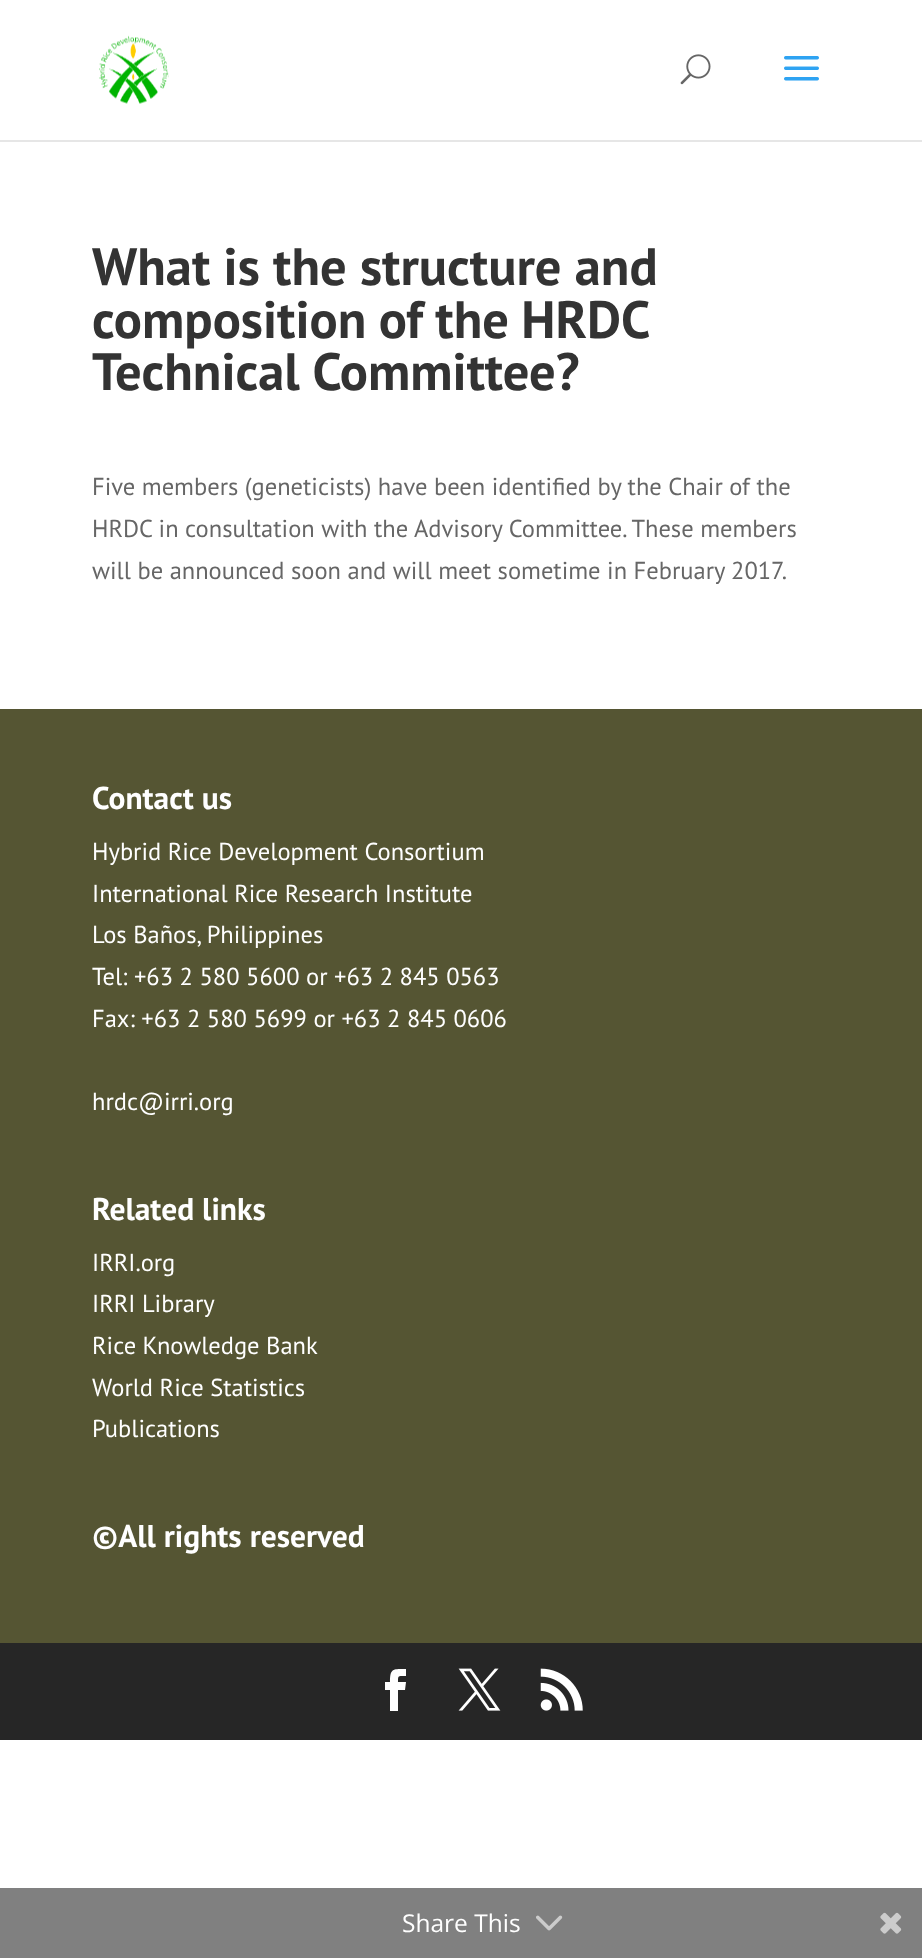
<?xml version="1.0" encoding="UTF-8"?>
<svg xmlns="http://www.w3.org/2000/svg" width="922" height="1958">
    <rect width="100%" height="100%" fill="#FFFFFF"/>
    <rect x="0" y="140" width="922" height="2" fill="#E6E6E6"/>
    <image x="99" y="35" width="70" height="69" href="img_01.png"/>
    <image x="680" y="54" width="31" height="31" href="img_02.png"/>
    <image x="784" y="56" width="35" height="25" href="img_03.png"/>
    <text font-family="PT Sans" font-size="52.5" font-weight="700" fill="#333333">
        <tspan x="92" y="285">What is the structure and</tspan>
        <tspan x="92" y="338" word-spacing="-1">composition of the HRDC</tspan>
        <tspan x="92" y="390">Technical Committee?</tspan>
    </text>
    <text font-family="PT Sans" font-size="24.5" fill="#666666">
        <tspan x="92" y="495">Five members (geneticists) have been identified by the Chair of the</tspan>
        <tspan x="92" y="537">HRDC in consultation with the Advisory Committee. These members</tspan>
        <tspan x="92" y="579">will be announced soon and will meet sometime in February 2017.</tspan>
    </text>
    <rect x="0" y="709" width="922" height="934" fill="#555533"/>
    <text x="92" y="809" font-family="PT Sans" font-size="31.5" font-weight="700" fill="#FFFFFF">Contact us</text>
    <text font-family="PT Sans" font-size="24.5" fill="#FFFFFF">
        <tspan x="92" y="860">Hybrid Rice Development Consortium</tspan>
        <tspan x="92" y="902">International Rice Research Institute</tspan>
        <tspan x="92" y="943">Los Baños, Philippines</tspan>
        <tspan x="92" y="985">Tel: +63 2 580 5600 or +63 2 845 0563</tspan>
        <tspan x="92" y="1027">Fax: +63 2 580 5699 or +63 2 845 0606</tspan>
    </text>
    <text x="92" y="1110" font-family="PT Sans" font-size="24.5" fill="#FFFFFF">hrdc@irri.org</text>
    <text x="92" y="1220" font-family="PT Sans" font-size="31.5" font-weight="700" fill="#FFFFFF">Related links</text>
    <text font-family="PT Sans" font-size="24.5" fill="#FFFFFF">
        <tspan x="92" y="1271">IRRI.org</tspan>
        <tspan x="92" y="1312">IRRI Library</tspan>
        <tspan x="92" y="1354">Rice Knowledge Bank</tspan>
        <tspan x="92" y="1396">World Rice Statistics</tspan>
        <tspan x="92" y="1437">Publications</tspan>
    </text>
    <text x="92" y="1547" font-family="PT Sans" font-size="31.5" font-weight="700" fill="#FFFFFF">©All rights reserved</text>
    <rect x="0" y="1643" width="922" height="97" fill="#262626"/>
    <path d="M 390 1711 H 398 V 1690 H 405 L 406 1682 H 398 C 398 1675 398 1676 406 1676 V 1669 C 393 1669 390 1668 390 1682 H 385 V 1690 H 390 Z" fill="#FFFFFF"/>
    <image x="458" y="1668" width="43" height="43" href="img_04.png"/>
    <image x="540" y="1668" width="43" height="43" href="img_05.png"/>
    <rect x="0" y="1888" width="922" height="70" fill="#808080"/>
    <text x="402" y="1932" font-family="Open Sans" font-size="24.5" fill="#FFFFFF">Share This</text>
    <image x="536" y="1915" width="27" height="16" href="img_06.png"/>
    <image x="880" y="1912" width="22" height="22" href="img_07.png"/>
</svg>
